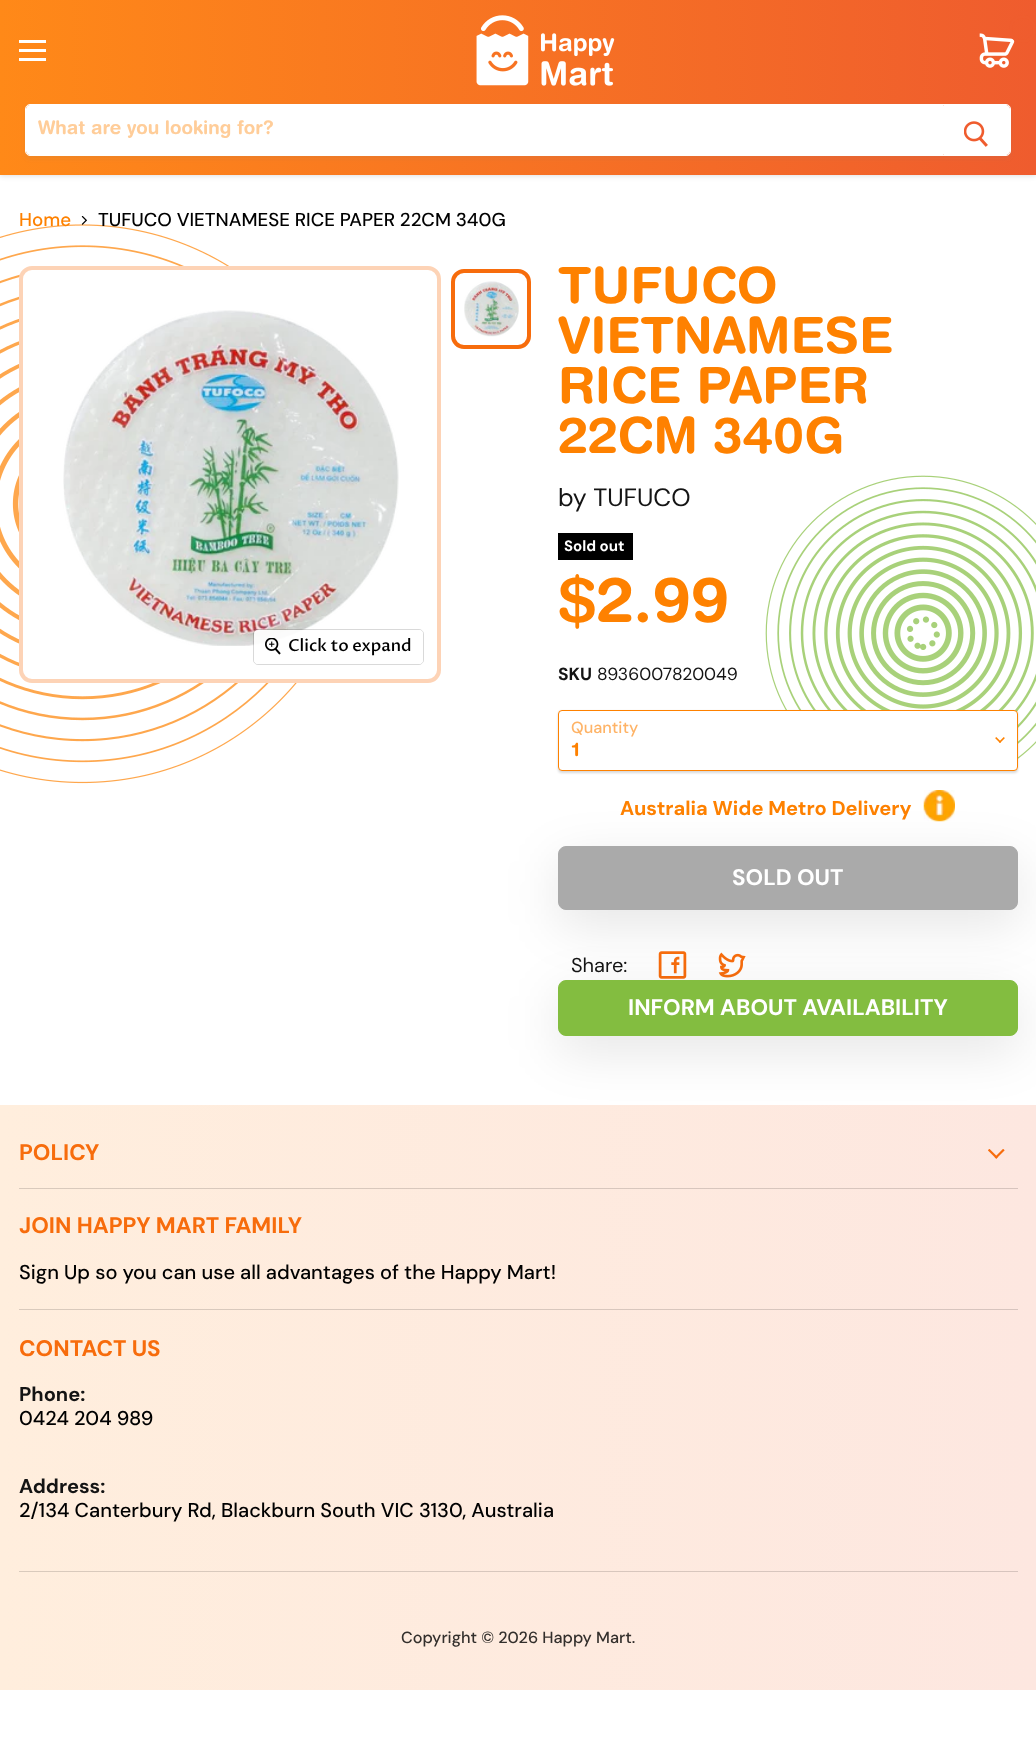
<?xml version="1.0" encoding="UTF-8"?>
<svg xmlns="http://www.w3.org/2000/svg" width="1036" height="1751">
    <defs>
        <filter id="blur1" x="-50%" y="-200%" width="200%" height="500%"><feGaussianBlur stdDeviation="2.5"/></filter>
        <linearGradient id="g1" gradientUnits="userSpaceOnUse" x1="0" y1="87" x2="1036" y2="88"><stop offset="0" stop-color="#FF8918"/><stop offset="1" stop-color="#EF5C2E"/></linearGradient>
        <filter id="blur2" x="-50%" y="-200%" width="200%" height="500%"><feGaussianBlur stdDeviation="2"/></filter>
        <filter id="blur3" x="-50%" y="-200%" width="200%" height="500%"><feGaussianBlur stdDeviation="1"/></filter>
        <filter id="blur4" x="-50%" y="-200%" width="200%" height="500%"><feGaussianBlur stdDeviation="26"/></filter>
        <linearGradient id="g2" gradientUnits="userSpaceOnUse" x1="-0.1" y1="1397" x2="1036" y2="1398"><stop offset="0" stop-color="#FFEEDD"/><stop offset="1" stop-color="#FDE7E0"/></linearGradient>
        <linearGradient id="g3" gradientUnits="userSpaceOnUse" x1="-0.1" y1="1397" x2="1036" y2="1398"><stop offset="0" stop-color="#D9CABC"/><stop offset="1" stop-color="#D7C4BE"/></linearGradient>
    </defs>
    <rect width="100%" height="100%" fill="#FFFFFF"/>
    <rect x="0" y="1" width="1036" height="175" fill="#808080" fill-opacity="0.25" filter="url(#blur1)"/>
    <rect x="0" y="0" width="1036" height="175" fill="url(#g1)"/>
    <rect x="19" y="40" width="27" height="3" fill="#FFFFFF"/>
    <rect x="19" y="49" width="27" height="3" fill="#FFFFFF"/>
    <rect x="19" y="58" width="27" height="3" fill="#FFFFFF"/>
    <image x="979" y="33" width="36" height="35" href="img_01.png"/>
    <rect x="1010.5" y="16.5" width="24" height="25" rx="12" fill="none" stroke="#EF5D2E" stroke-width="3"/>
    <image x="476" y="15" width="139" height="71" href="img_02.png"/>
    <rect x="25" y="106" width="986" height="53" rx="5" fill="#808080" fill-opacity="0.11" filter="url(#blur2)"/>
    <rect x="25.5" y="104.5" width="985" height="51" rx="4.5" fill="none" stroke="#FFFFFF"/>
    <path d="M 30 105 H 943 V 155 H 30 C 28 155 26 153 26 151 V 109 C 26 107 28 105 30 105 Z" fill="#FFFFFF"/>
    <text x="38" y="134" font-family="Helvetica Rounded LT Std" font-size="18.75" font-weight="700" fill="#FFCD99">What are you looking for?</text>
    <path d="M 943.5 105.5 H 1006 C 1008 105.5 1009.5 107 1009.5 109 V 151 C 1009.5 153 1008 154.5 1006 154.5 H 943.5 Z" fill="#FFFFFF" stroke="#FFFFFF"/>
    <image x="964" y="121" width="24" height="26" href="img_03.png"/>
    <image x="765" y="475" width="271" height="284" href="img_04.png"/>
    <image x="0" y="224" width="297" height="560" href="img_05.png"/>
    <text x="19" y="226" font-family="DM Sans" font-size="18.75" font-weight="500" fill="#FE8100">Home</text>
    <image x="81" y="216" width="6" height="9" href="img_06.png"/>
    <text x="98" y="226" font-family="DM Sans" font-size="18.75" font-weight="500" fill="#000000">TUFUCO VIETNAMESE RICE PAPER 22CM 340G</text>
    <rect x="453" y="271" width="76" height="76" rx="11" fill="none" stroke="#F76C0C" stroke-width="4"/>
    <image x="464" y="281" width="55" height="56" href="img_07.png"/>
    <rect x="19" y="266" width="422" height="417" rx="13" fill="#FFFFFF"/>
    <rect x="21" y="268" width="418" height="413" rx="11" fill="none" stroke="#F76C0C" stroke-opacity="0.3" stroke-width="4"/>
    <image x="63" y="310" width="336" height="336" href="img_08.png"/>
    <rect x="253.5" y="629.5" width="170" height="35" rx="4.5" fill="none" stroke="#000000" stroke-opacity="0.15"/>
    <rect x="254" y="630" width="169" height="34" rx="4" fill="#FFFFFF" fill-opacity="0.9"/>
    <image x="265" y="638" width="16" height="17" href="img_09.png"/>
    <text x="288" y="651" font-family="Proza Libre" font-size="16.5" font-weight="500" fill="#000000">Click to expand</text>
    <text font-family="Helvetica Rounded LT Std" font-size="50" font-weight="700" fill="#FE8100">
        <tspan x="558" y="303">TUFUCO</tspan>
        <tspan x="558" y="353">VIETNAMESE</tspan>
        <tspan x="558" y="403">RICE PAPER</tspan>
        <tspan x="558" y="453">22CM 340G</tspan>
    </text>
    <text x="558" y="506" font-family="DM Sans" font-size="25" fill="#141414">by TUFUCO</text>
    <rect x="558" y="533" width="75" height="27" fill="#000000"/>
    <text x="564" y="551" font-family="DM Sans" font-size="15" font-weight="700" fill="#FFFFFF">Sold out</text>
    <text x="558" y="622" font-family="Helvetica Rounded LT Std" font-size="62.5" font-weight="700" fill="#FE8100">$2.99</text>
    <text x="558" y="680" font-family="DM Sans" font-size="17.5" font-weight="700" fill="#141414">SKU</text>
    <text x="597" y="680" font-family="DM Sans" font-size="17.5" fill="#141414">8936007820049</text>
    <rect x="558" y="711" width="460" height="62" rx="4" fill="#000000" fill-opacity="0.15" filter="url(#blur3)"/>
    <rect x="558.5" y="710.5" width="459" height="60" rx="3.5" fill="#FFFFFF" stroke="#FE8100"/>
    <text x="571" y="733" font-family="DM Sans" font-size="16.25" font-weight="500" fill="#FEB366">Quantity</text>
    <image x="995" y="737" width="10" height="6" href="img_10.png"/>
    <text x="572" y="756" font-family="Helvetica Rounded LT Std" font-size="18.75" font-weight="700" fill="#FE8100">1</text>
    <text x="620" y="815" font-family="DM Sans" font-size="20" font-weight="700" fill="#FE8100">Australia Wide Metro Delivery</text>
    <image x="923" y="790" width="32" height="32" href="img_11.png"/>
    <rect x="558" y="861" width="460" height="64" rx="8" fill="#000000" fill-opacity="0.1" filter="url(#blur4)"/>
    <rect x="558.5" y="846.5" width="459" height="63" rx="7.5" fill="#AAAAAA" stroke="#AAAAAA"/>
    <text x="732" y="885" font-family="DM Sans" font-size="22.5" font-weight="700" fill="#FFFFFF">SOLD OUT</text>
    <text x="571" y="972" font-family="DM Sans" font-size="20" fill="#141414">Share:</text>
    <image x="658" y="951" width="29" height="28" href="img_12.png"/>
    <image x="718" y="952" width="28" height="26" href="img_13.png"/>
    <rect x="0" y="1105" width="1036" height="585" fill="url(#g2)"/>
    <rect x="558" y="995" width="460" height="56" rx="8" fill="#000000" fill-opacity="0.1" filter="url(#blur4)"/>
    <rect x="558.5" y="980.5" width="459" height="55" rx="7.5" fill="#83BD40" stroke="#83BD40"/>
    <text x="628" y="1015" font-family="DM Sans" font-size="22.5" font-weight="700" fill="#FFFFFF">INFORM ABOUT AVAILABILITY</text>
    <rect x="19" y="1571" width="999" height="1" fill="url(#g3)"/>
    <rect x="19" y="1309" width="999" height="1" fill="url(#g3)"/>
    <rect x="19" y="1188" width="999" height="1" fill="url(#g3)"/>
    <text x="19" y="1160" font-family="DM Sans" font-size="22.5" font-weight="700" fill="#F76C0C">POLICY</text>
    <image x="988" y="1149" width="17" height="10" href="img_14.png"/>
    <text x="19" y="1233" font-family="DM Sans" font-size="22.5" font-weight="700" fill="#F76C0C">JOIN HAPPY MART FAMILY</text>
    <text x="19" y="1279" font-family="DM Sans" font-size="20" font-weight="500" fill="#000000">Sign Up so you can use all advantages of the Happy Mart!</text>
    <text x="19" y="1356" font-family="DM Sans" font-size="22.5" font-weight="700" fill="#F76C0C">CONTACT US</text>
    <text x="19" y="1401" font-family="DM Sans" font-size="20" font-weight="700" fill="#141414">Phone:</text>
    <text x="19" y="1425" font-family="DM Sans" font-size="20" font-weight="500" fill="#000000">0424 204 989</text>
    <text x="19" y="1493" font-family="DM Sans" font-size="20" font-weight="700" fill="#141414">Address:</text>
    <text x="19" y="1517" font-family="DM Sans" font-size="20" font-weight="500" fill="#000000">2/134 Canterbury Rd, Blackburn South VIC 3130, Australia</text>
    <text x="401" y="1643" font-family="DM Sans" font-size="16.25" font-weight="500" fill="#332F2C">Copyright © 2026 Happy Mart.</text>
</svg>
